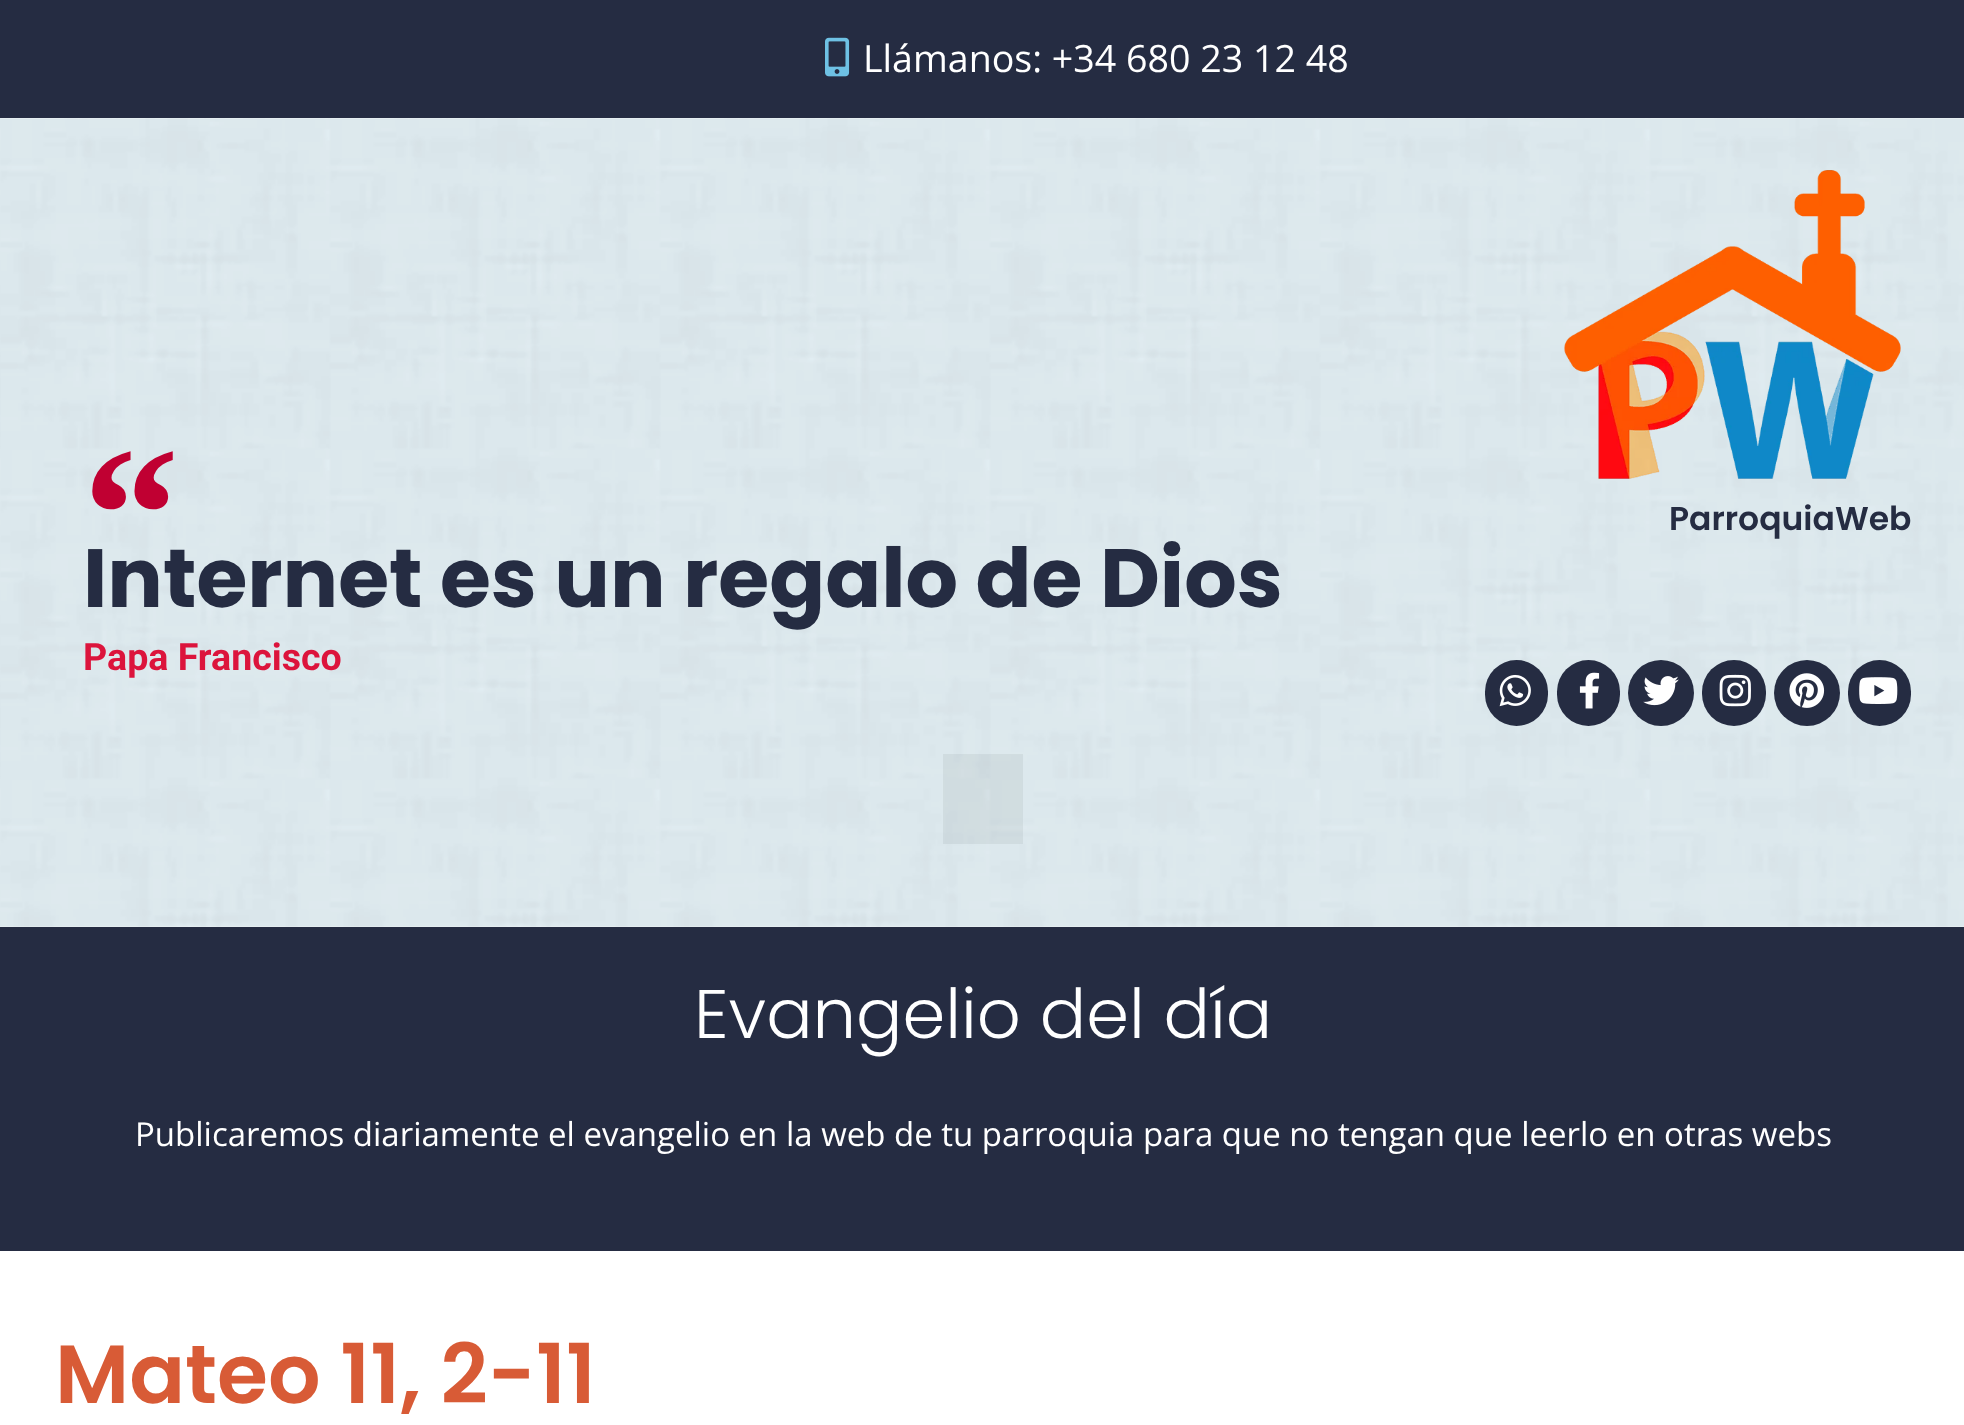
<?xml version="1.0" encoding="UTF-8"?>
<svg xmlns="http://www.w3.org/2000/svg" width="1964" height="1425">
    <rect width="100%" height="100%" fill="#FFFFFF"/>
    <rect x="0" y="0" width="1964" height="118" fill="#252C42"/>
    <image x="825" y="37" width="25" height="40" href="img_01.png"/>
    <text x="863" y="72" font-family="Open Sans" font-size="37.6" fill="#FFFFFF">Llámanos: +34 680 23 12 48</text>
    <image x="0" y="118" width="1964" height="809" href="img_02.png"/>
    <text x="83" y="579" font-family="Liberation Serif" font-size="192" font-weight="700" fill="#C00032">“</text>
    <text x="83" y="607" font-family="Poppins" font-size="82.5" font-weight="700" fill="#252C42">Internet es un regalo de Dios</text>
    <text x="83" y="670" font-family="Roboto" font-size="37.6" font-weight="700" fill="#DC143C">Papa Francisco</text>
    <image x="1564" y="170" width="337" height="309" href="img_03.png"/>
    <text x="1669" y="530" font-family="Poppins" font-size="33" font-weight="600" fill="#252C42">ParroquiaWeb</text>
    <rect x="1485" y="660" width="63" height="66" rx="31.5" fill="#252C42"/>
    <image x="1499" y="674" width="32" height="33" href="img_04.png"/>
    <rect x="1557" y="660" width="63" height="66" rx="31.5" fill="#252C42"/>
    <image x="1579" y="672" width="21" height="37" href="img_05.png"/>
    <circle cx="1661" cy="693" r="33" fill="#252C42"/>
    <image x="1643" y="676" width="36" height="30" href="img_06.png"/>
    <rect x="1702" y="660" width="64" height="66" rx="32" fill="#252C42"/>
    <image x="1719" y="674" width="32" height="33" href="img_07.png"/>
    <circle cx="1807" cy="693" r="33" fill="#252C42"/>
    <image x="1789" y="673" width="36" height="35" href="img_08.png"/>
    <rect x="1848" y="660" width="63" height="66" rx="31.5" fill="#252C42"/>
    <image x="1859" y="677" width="39" height="27" href="img_09.png"/>
    <rect x="943" y="754" width="80" height="90" fill="#000000" fill-opacity="0.05"/>
    <rect x="0" y="927" width="1964" height="324" fill="#252C42"/>
    <text x="694" y="1038" font-family="Poppins" font-size="68.75" font-weight="300" fill="#FFFFFF">Evangelio del día</text>
    <text x="135" y="1146" font-family="Open Sans" font-size="33" fill="#FFFFFF">Publicaremos diariamente el evangelio en la web de tu parroquia para que no tengan que leerlo en otras webs</text>
    <text x="55" y="1403" font-family="Poppins" font-size="82.5" font-weight="600" fill="#D85B36">Mateo 11, 2-11</text>
</svg>
